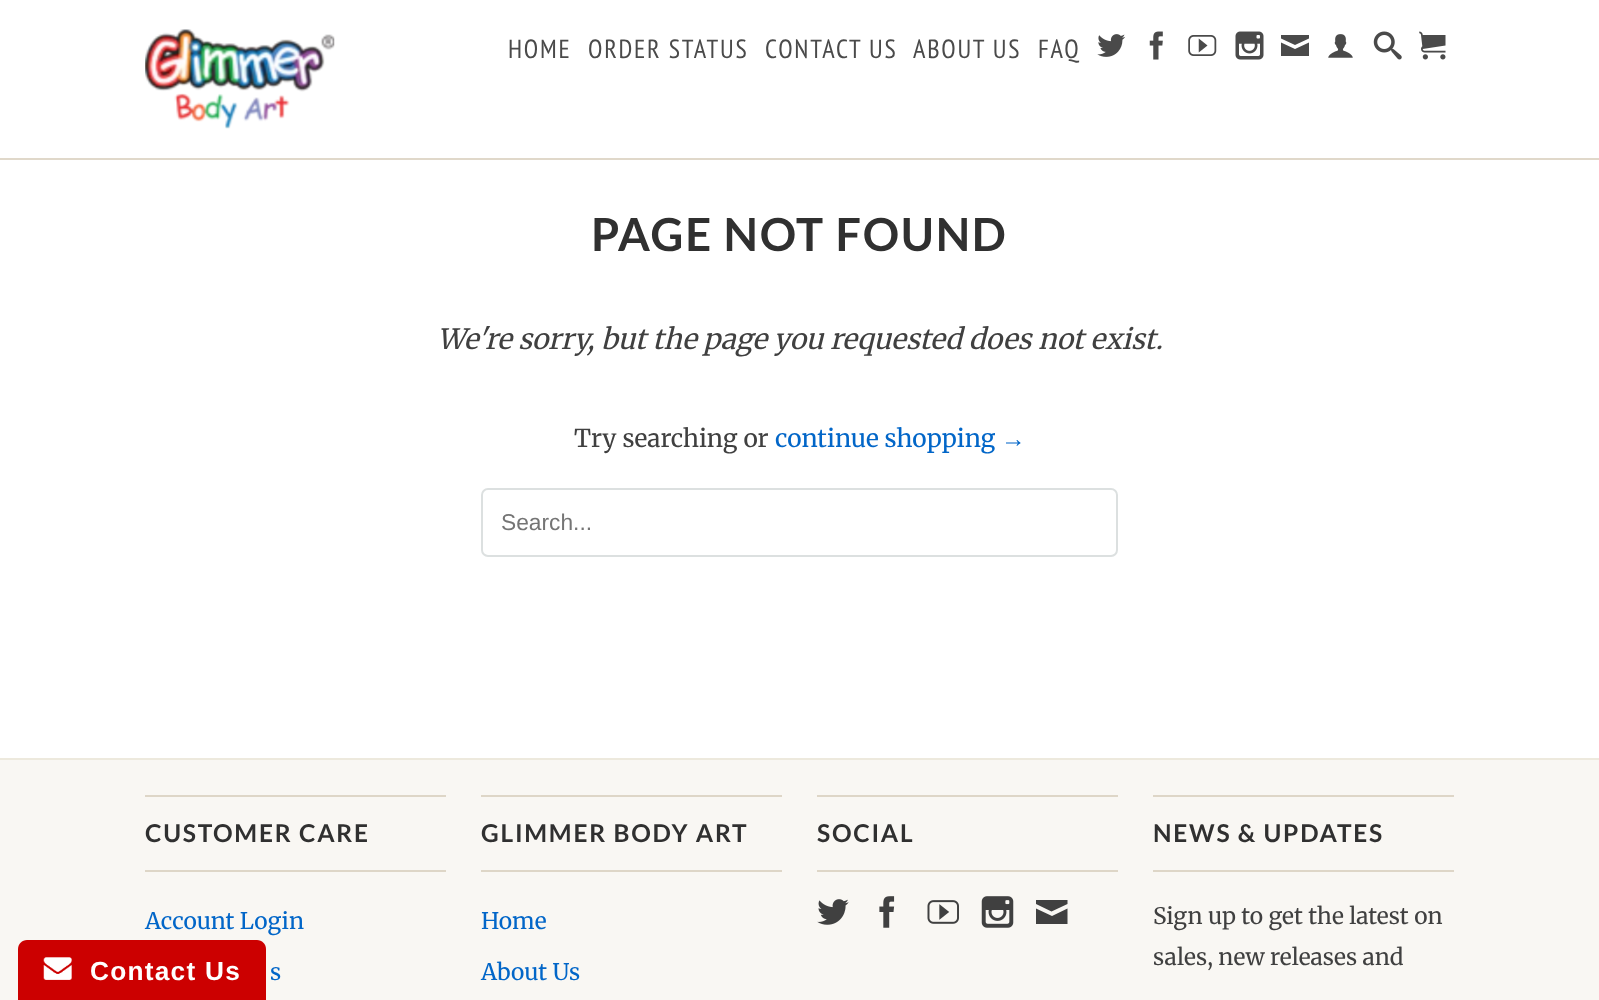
<?xml version="1.0" encoding="UTF-8"?>
<svg xmlns="http://www.w3.org/2000/svg" width="1599" height="1000">
    <rect width="100%" height="100%" fill="#FFFFFF"/>
    <rect x="0" y="158" width="1599" height="2" fill="#E0D8CA"/>
    <image x="145" y="29" width="190" height="100" href="img_01.png"/>
    <text x="508" y="58" font-family="PT Sans Narrow" font-size="26.25" letter-spacing="1.75" fill="#4A4A4A">HOME</text>
    <text x="588" y="58" font-family="PT Sans Narrow" font-size="26.25" letter-spacing="1.75" fill="#4A4A4A">ORDER STATUS</text>
    <text x="765" y="58" font-family="PT Sans Narrow" font-size="26.25" letter-spacing="1.75" fill="#4A4A4A">CONTACT US</text>
    <text x="913" y="58" font-family="PT Sans Narrow" font-size="26.25" letter-spacing="1.75" fill="#4A4A4A">ABOUT US</text>
    <text x="1038" y="58" font-family="PT Sans Narrow" font-size="26.25" letter-spacing="1.75" fill="#4A4A4A">FAQ</text>
    <image x="1097" y="34" width="29" height="23" href="img_02.png"/>
    <image x="1149" y="31" width="14" height="29" href="img_03.png"/>
    <image x="1188" y="35" width="29" height="21" href="img_04.png"/>
    <image x="1235" y="31" width="29" height="29" href="img_05.png"/>
    <path d="M 1295 45 L 1281 38.5 V 35 H 1309 V 38.5 Z M 1295 49 L 1309 42.5 V 56 H 1281 V 42.5 Z" fill="#4A4A4A"/>
    <image x="1328" y="34" width="25" height="24" href="img_06.png"/>
    <image x="1373" y="31" width="29" height="29" href="img_07.png"/>
    <image x="1419" y="31" width="27" height="29" href="img_08.png"/>
    <text x="591" y="251" font-family="Lato" font-size="45.5" font-weight="700" letter-spacing="1.75" fill="#303030">PAGE NOT FOUND</text>
    <text x="437" y="349" font-family="Merriweather" font-size="28" font-style="italic" fill="#404040">We're sorry, but the page you requested does not exist.</text>
    <text x="574" y="447" font-family="Merriweather" font-size="24.5" fill="#404040">Try searching or</text>
    <text x="775" y="447" font-family="Merriweather" font-size="24.5" fill="#0266C8">continue shopping</text>
    <text x="1001" y="447" font-family="Liberation Serif" font-size="24.5" fill="#0266C8">→</text>
    <rect x="482" y="489" width="635" height="67" rx="6" fill="none" stroke="#DCE0E0" stroke-width="2"/>
    <text x="501" y="530" font-family="Liberation Sans" font-size="22.75" fill="#757575">Search...</text>
    <rect x="0" y="760" width="1599" height="240" fill="#F9F7F3"/>
    <rect x="0" y="758" width="1599" height="2" fill="#EDE9DD"/>
    <rect x="145" y="795" width="301" height="2" fill="#DED6C7"/>
    <rect x="145" y="870" width="301" height="2" fill="#DED6C7"/>
    <text x="145" y="842" font-family="Lato" font-size="24.5" font-weight="700" letter-spacing="1.75" fill="#303030">CUSTOMER CARE</text>
    <text x="145" y="929" font-family="Merriweather" font-size="22.75" fill="#0266C8">Account Login</text>
    <text x="270" y="980" font-family="Merriweather" font-size="22.75" fill="#0266C8">s</text>
    <rect x="481" y="795" width="301" height="2" fill="#DED6C7"/>
    <rect x="481" y="870" width="301" height="2" fill="#DED6C7"/>
    <text x="481" y="842" font-family="Lato" font-size="24.5" font-weight="700" letter-spacing="1.75" fill="#303030">GLIMMER BODY ART</text>
    <text x="481" y="929" font-family="Merriweather" font-size="22.75" fill="#0266C8">Home</text>
    <text x="481" y="980" font-family="Merriweather" font-size="22.75" fill="#0266C8">About Us</text>
    <rect x="817" y="795" width="301" height="2" fill="#DED6C7"/>
    <rect x="817" y="870" width="301" height="2" fill="#DED6C7"/>
    <text x="817" y="842" font-family="Lato" font-size="24.5" font-weight="700" letter-spacing="1.75" fill="#303030">SOCIAL</text>
    <image x="817" y="899" width="32" height="26" href="img_09.png"/>
    <image x="879" y="896" width="16" height="32" href="img_10.png"/>
    <image x="927" y="900" width="32" height="24" href="img_11.png"/>
    <image x="981" y="896" width="33" height="32" href="img_12.png"/>
    <path d="M 1051.5 911.5 L 1036 904 V 900 H 1067.5 V 904 Z M 1052 916 L 1067.5 908.5 V 924 H 1036 V 908.5 Z" fill="#404040"/>
    <rect x="1153" y="795" width="301" height="2" fill="#DED6C7"/>
    <rect x="1153" y="870" width="301" height="2" fill="#DED6C7"/>
    <text x="1153" y="842" font-family="Lato" font-size="24.5" font-weight="700" letter-spacing="1.75" fill="#303030">NEWS &amp; UPDATES</text>
    <text font-family="Merriweather" font-size="22.75" fill="#404040">
        <tspan x="1153" y="924">Sign up to get the latest on</tspan>
        <tspan x="1153" y="965">sales, new releases and</tspan>
    </text>
    <path d="M 27 940 H 257 C 262 940 266 944 266 949 V 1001 H 18 V 949 C 18 944 22 940 27 940 Z" fill="#CC0000"/>
    <image x="43" y="957" width="29" height="23" href="img_13.png"/>
    <text x="90" y="980" font-family="Liberation Sans" font-size="26.25" font-weight="700" letter-spacing="1.25" fill="#FFFFFF">Contact Us</text>
</svg>
